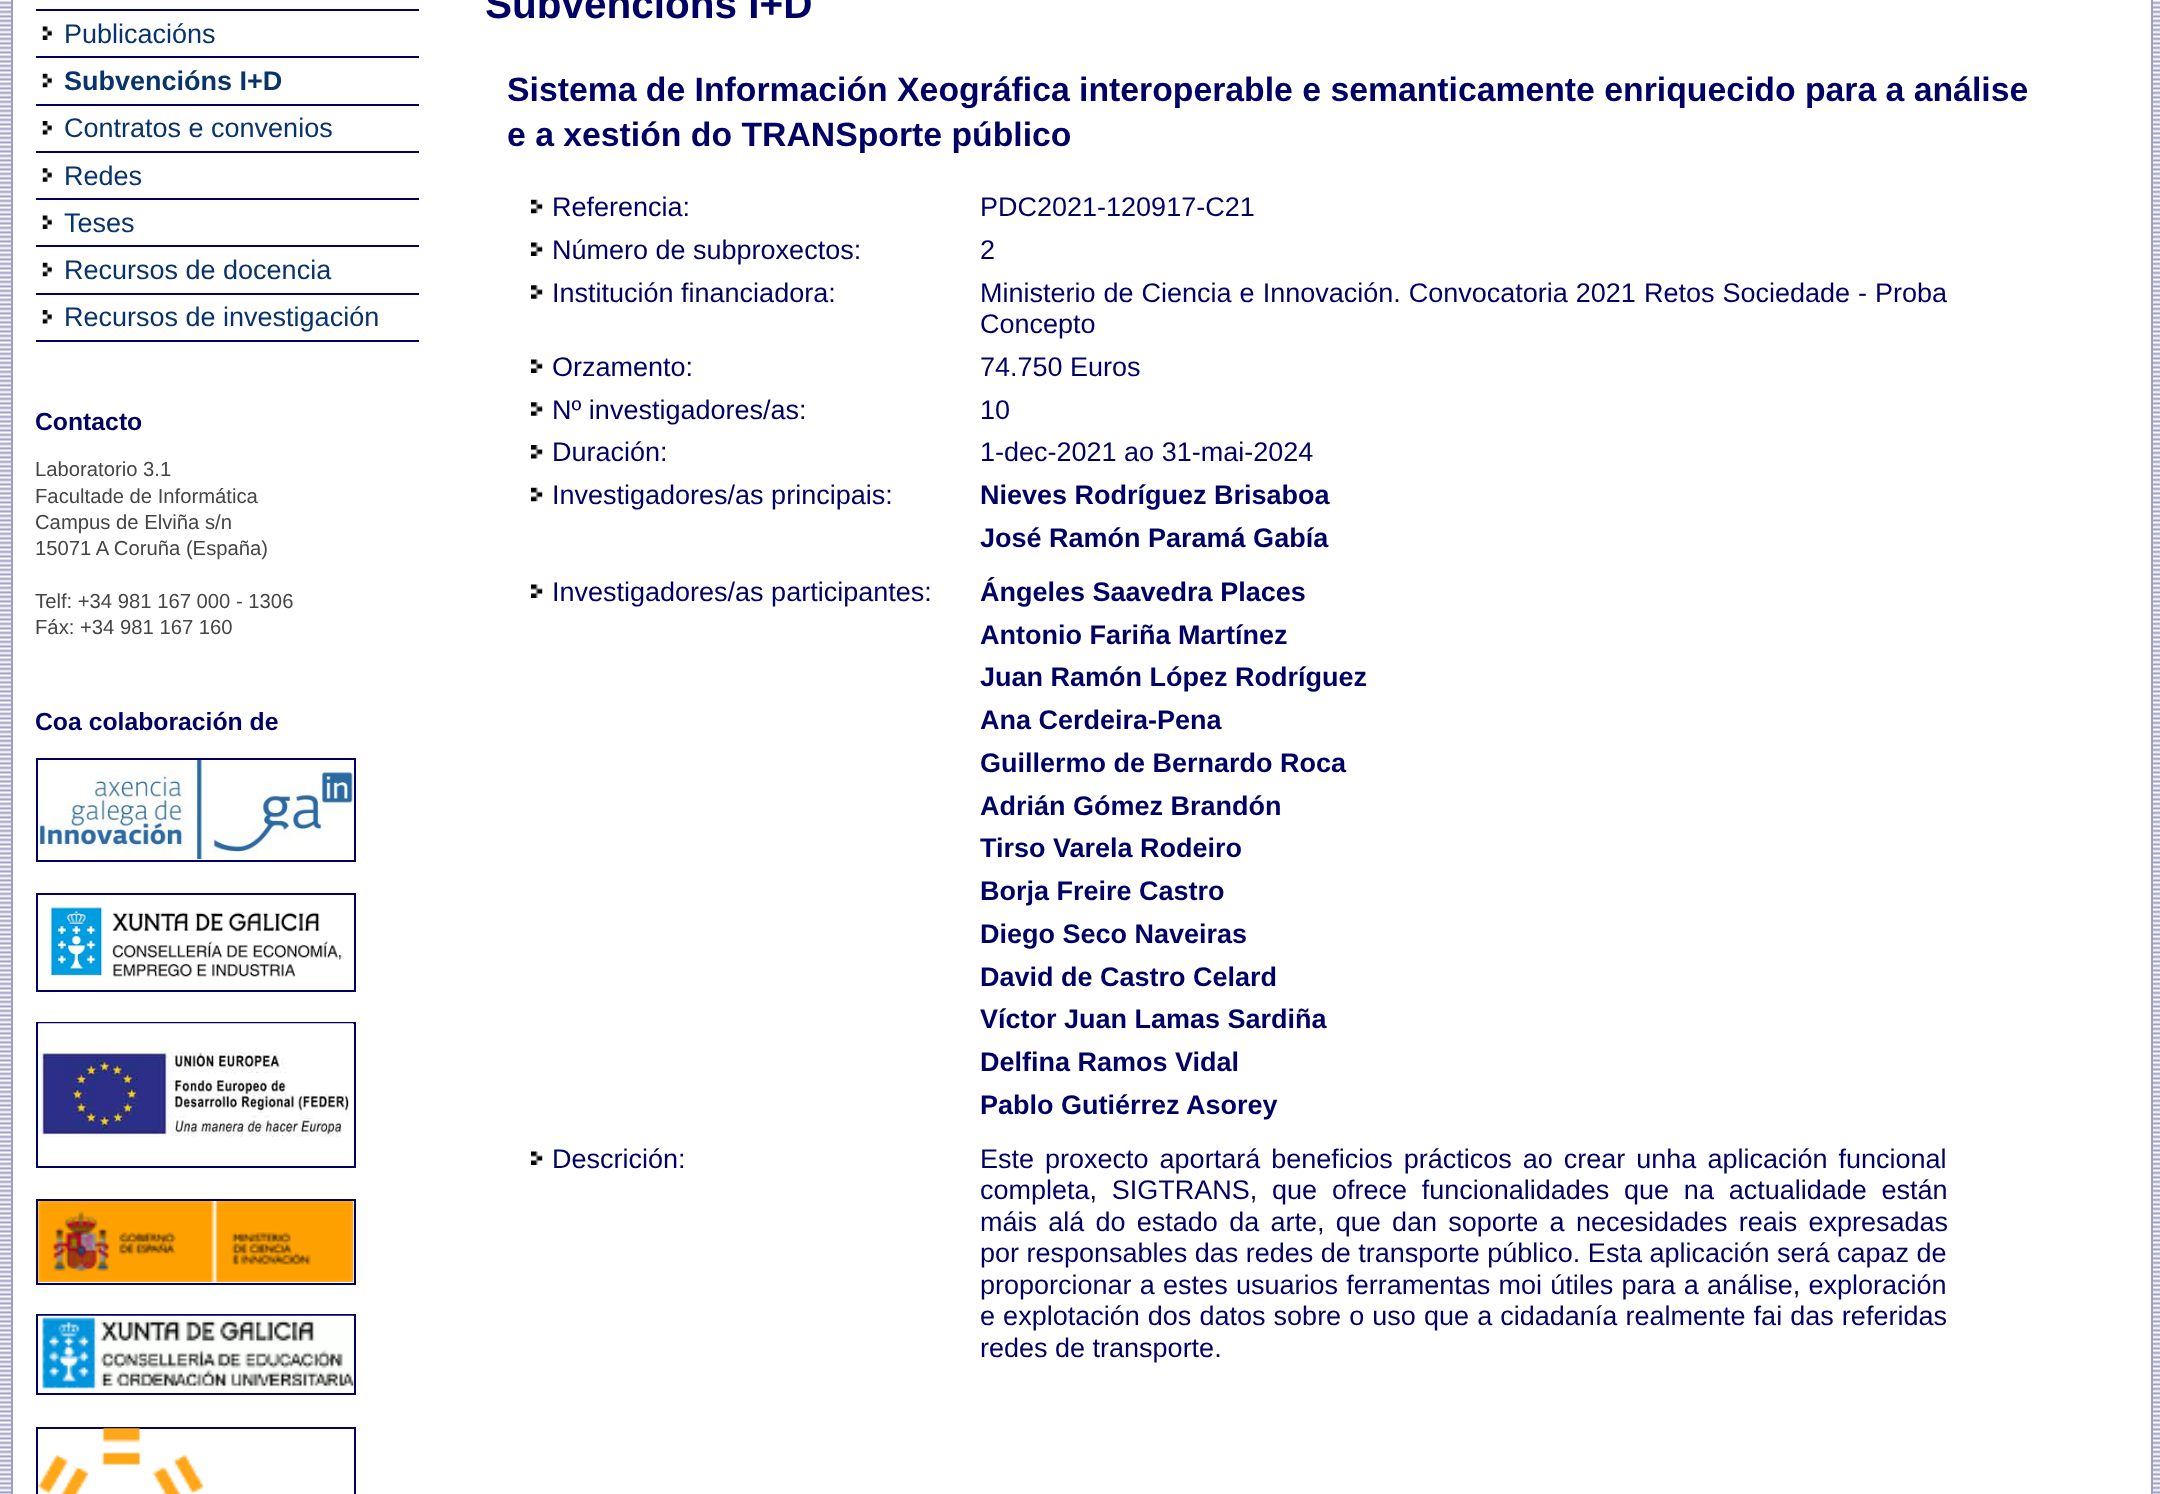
<?xml version="1.0" encoding="UTF-8"?>
<svg xmlns="http://www.w3.org/2000/svg" width="2160" height="1494">
    <rect width="100%" height="100%" fill="#FFFFFF"/>
    <image x="0" y="0" width="2160" height="1494" href="img_01.png"/>
    <rect x="13" y="0" width="2138" height="1494" fill="#FFFFFF"/>
    <rect x="2151" y="0" width="2" height="1494" fill="#9E9EC4"/>
    <rect x="11" y="0" width="2" height="1494" fill="#9E9EC4"/>
    <rect x="36" y="9" width="383" height="2" fill="#000065"/>
    <rect x="36" y="56" width="383" height="2" fill="#000065"/>
    <image x="42" y="26" width="10" height="14" href="img_02.png"/>
    <text x="64" y="43" font-family="Liberation Sans" font-size="27" fill="#09336B">Publicacións</text>
    <rect x="36" y="104" width="383" height="2" fill="#000065"/>
    <image x="42" y="73" width="10" height="15" href="img_03.png"/>
    <text x="64" y="90" font-family="Liberation Sans" font-size="27" font-weight="700" fill="#09336B">Subvencións I+D</text>
    <rect x="36" y="151" width="383" height="2" fill="#000065"/>
    <image x="42" y="121" width="10" height="14" href="img_04.png"/>
    <text x="64" y="137" font-family="Liberation Sans" font-size="27" fill="#09336B">Contratos e convenios</text>
    <rect x="36" y="198" width="383" height="2" fill="#000065"/>
    <image x="42" y="168" width="10" height="14" href="img_05.png"/>
    <text x="64" y="185" font-family="Liberation Sans" font-size="27" fill="#09336B">Redes</text>
    <rect x="36" y="245" width="383" height="2" fill="#000065"/>
    <image x="42" y="215" width="10" height="14" href="img_02.png"/>
    <text x="64" y="232" font-family="Liberation Sans" font-size="27" fill="#09336B">Teses</text>
    <rect x="36" y="293" width="383" height="2" fill="#000065"/>
    <image x="42" y="262" width="10" height="15" href="img_03.png"/>
    <text x="64" y="279" font-family="Liberation Sans" font-size="27" fill="#09336B">Recursos de docencia</text>
    <rect x="36" y="340" width="383" height="2" fill="#000065"/>
    <image x="42" y="310" width="10" height="14" href="img_04.png"/>
    <text x="64" y="326" font-family="Liberation Sans" font-size="27" fill="#09336B">Recursos de investigación</text>
    <text x="35" y="430" font-family="Liberation Sans" font-size="24.75" font-weight="700" fill="#000065">Contacto</text>
    <text font-family="Liberation Sans" font-size="20.25" fill="#454545">
        <tspan x="35" y="476">Laboratorio 3.1</tspan>
        <tspan x="35" y="503">Facultade de Informática</tspan>
        <tspan x="35" y="529">Campus de Elviña s/n</tspan>
        <tspan x="35" y="555">15071 A Coruña (España)</tspan>
    </text>
    <text font-family="Liberation Sans" font-size="20.25" fill="#454545">
        <tspan x="35" y="608">Telf: +34 981 167 000 - 1306</tspan>
        <tspan x="35" y="634">Fáx: +34 981 167 160</tspan>
    </text>
    <text x="35" y="730" font-family="Liberation Sans" font-size="24.75" font-weight="700" fill="#000065">Coa colaboración de</text>
    <rect x="37" y="759" width="318" height="102" fill="none" stroke="#000065" stroke-width="2"/>
    <image x="38" y="760" width="316" height="99" href="img_06.png"/>
    <rect x="37" y="894" width="318" height="97" fill="none" stroke="#000065" stroke-width="2"/>
    <image x="48" y="904" width="294" height="74" href="img_07.png"/>
    <rect x="37" y="1023" width="318" height="144" fill="none" stroke="#000065" stroke-width="2"/>
    <image x="38" y="1023" width="316" height="114" href="img_08.png"/>
    <rect x="37" y="1200" width="318" height="84" fill="none" stroke="#000065" stroke-width="2"/>
    <image x="38" y="1201" width="316" height="81" href="img_09.png"/>
    <rect x="37" y="1315" width="318" height="79" fill="none" stroke="#000065" stroke-width="2"/>
    <image x="38" y="1315" width="316" height="74" href="img_10.png"/>
    <rect x="37" y="1428" width="318" height="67" fill="none" stroke="#000065" stroke-width="2"/>
    <image x="38" y="1428" width="166" height="66" href="img_11.png"/>
    <text x="485" y="18" font-family="Liberation Sans" font-size="40.5" font-weight="700" fill="#000065">Subvencións I+D</text>
    <text font-family="Liberation Sans" font-size="33.75" font-weight="700" fill="#000065">
        <tspan x="507" y="101">Sistema de Información Xeográfica interoperable e semanticamente enriquecido para a análise</tspan>
        <tspan x="507" y="146">e a xestión do TRANSporte público</tspan>
    </text>
    <image x="531" y="199" width="12" height="15" href="img_12.png"/>
    <text x="552" y="216" font-family="Liberation Sans" font-size="27" fill="#000065">Referencia:</text>
    <text x="980" y="216" font-family="Liberation Sans" font-size="27" fill="#000065">PDC2021-120917-C21</text>
    <image x="531" y="242" width="12" height="14" href="img_13.png"/>
    <text x="552" y="259" font-family="Liberation Sans" font-size="27" fill="#000065">Número de subproxectos:</text>
    <text x="980" y="259" font-family="Liberation Sans" font-size="27" fill="#000065">2</text>
    <image x="531" y="285" width="12" height="14" href="img_14.png"/>
    <text x="552" y="302" font-family="Liberation Sans" font-size="27" fill="#000065">Institución financiadora:</text>
    <text font-family="Liberation Sans" font-size="27" fill="#000065">
        <tspan x="980" y="302" word-spacing="0.5">Ministerio de Ciencia e Innovación. Convocatoria 2021 Retos Sociedade - Proba</tspan>
        <tspan x="980" y="333">Concepto</tspan>
    </text>
    <image x="531" y="359" width="12" height="14" href="img_13.png"/>
    <text x="552" y="376" font-family="Liberation Sans" font-size="27" fill="#000065">Orzamento:</text>
    <text x="980" y="376" font-family="Liberation Sans" font-size="27" fill="#000065">74.750 Euros</text>
    <image x="531" y="402" width="12" height="14" href="img_14.png"/>
    <text x="552" y="419" font-family="Liberation Sans" font-size="27" fill="#000065">Nº investigadores/as:</text>
    <text x="980" y="419" font-family="Liberation Sans" font-size="27" fill="#000065">10</text>
    <image x="531" y="445" width="12" height="14" href="img_15.png"/>
    <text x="552" y="461" font-family="Liberation Sans" font-size="27" fill="#000065">Duración:</text>
    <text x="980" y="461" font-family="Liberation Sans" font-size="27" fill="#000065">1-dec-2021 ao 31-mai-2024</text>
    <image x="531" y="487" width="12" height="15" href="img_12.png"/>
    <text x="552" y="504" font-family="Liberation Sans" font-size="27" fill="#000065">Investigadores/as principais:</text>
    <text font-family="Liberation Sans" font-size="27" font-weight="700" fill="#000065">
        <tspan x="980" y="504">Nieves Rodríguez Brisaboa</tspan>
        <tspan x="980" y="547">José Ramón Paramá Gabía</tspan>
    </text>
    <image x="531" y="584" width="12" height="14" href="img_13.png"/>
    <text x="552" y="601" font-family="Liberation Sans" font-size="27" fill="#000065">Investigadores/as participantes:</text>
    <text font-family="Liberation Sans" font-size="27" font-weight="700" fill="#000065">
        <tspan x="980" y="601">Ángeles Saavedra Places</tspan>
        <tspan x="980" y="644">Antonio Fariña Martínez</tspan>
        <tspan x="980" y="686">Juan Ramón López Rodríguez</tspan>
        <tspan x="980" y="729">Ana Cerdeira-Pena</tspan>
        <tspan x="980" y="772">Guillermo de Bernardo Roca</tspan>
        <tspan x="980" y="815">Adrián Gómez Brandón</tspan>
        <tspan x="980" y="857">Tirso Varela Rodeiro</tspan>
        <tspan x="980" y="900">Borja Freire Castro</tspan>
        <tspan x="980" y="943">Diego Seco Naveiras</tspan>
        <tspan x="980" y="986">David de Castro Celard</tspan>
        <tspan x="980" y="1028">Víctor Juan Lamas Sardiña</tspan>
        <tspan x="980" y="1071">Delfina Ramos Vidal</tspan>
        <tspan x="980" y="1114">Pablo Gutiérrez Asorey</tspan>
    </text>
    <image x="531" y="1151" width="12" height="14" href="img_13.png"/>
    <text x="552" y="1168" font-family="Liberation Sans" font-size="27" fill="#000065">Descrición:</text>
    <text font-family="Liberation Sans" font-size="27" fill="#000065">
        <tspan x="980" y="1168" word-spacing="3.5">Este proxecto aportará beneficios prácticos ao crear unha aplicación funcional</tspan>
        <tspan x="980" y="1199" word-spacing="7.25">completa, SIGTRANS, que ofrece funcionalidades que na actualidade están</tspan>
        <tspan x="980" y="1231" word-spacing="3.75">máis alá do estado da arte, que dan soporte a necesidades reais expresadas</tspan>
        <tspan x="980" y="1262">por responsables das redes de transporte público. Esta aplicación será capaz de</tspan>
        <tspan x="980" y="1294" word-spacing="0.75">proporcionar a estes usuarios ferramentas moi útiles para a análise, exploración</tspan>
        <tspan x="980" y="1325" word-spacing="0.6">e explotación dos datos sobre o uso que a cidadanía realmente fai das referidas</tspan>
        <tspan x="980" y="1357">redes de transporte.</tspan>
    </text>
</svg>
